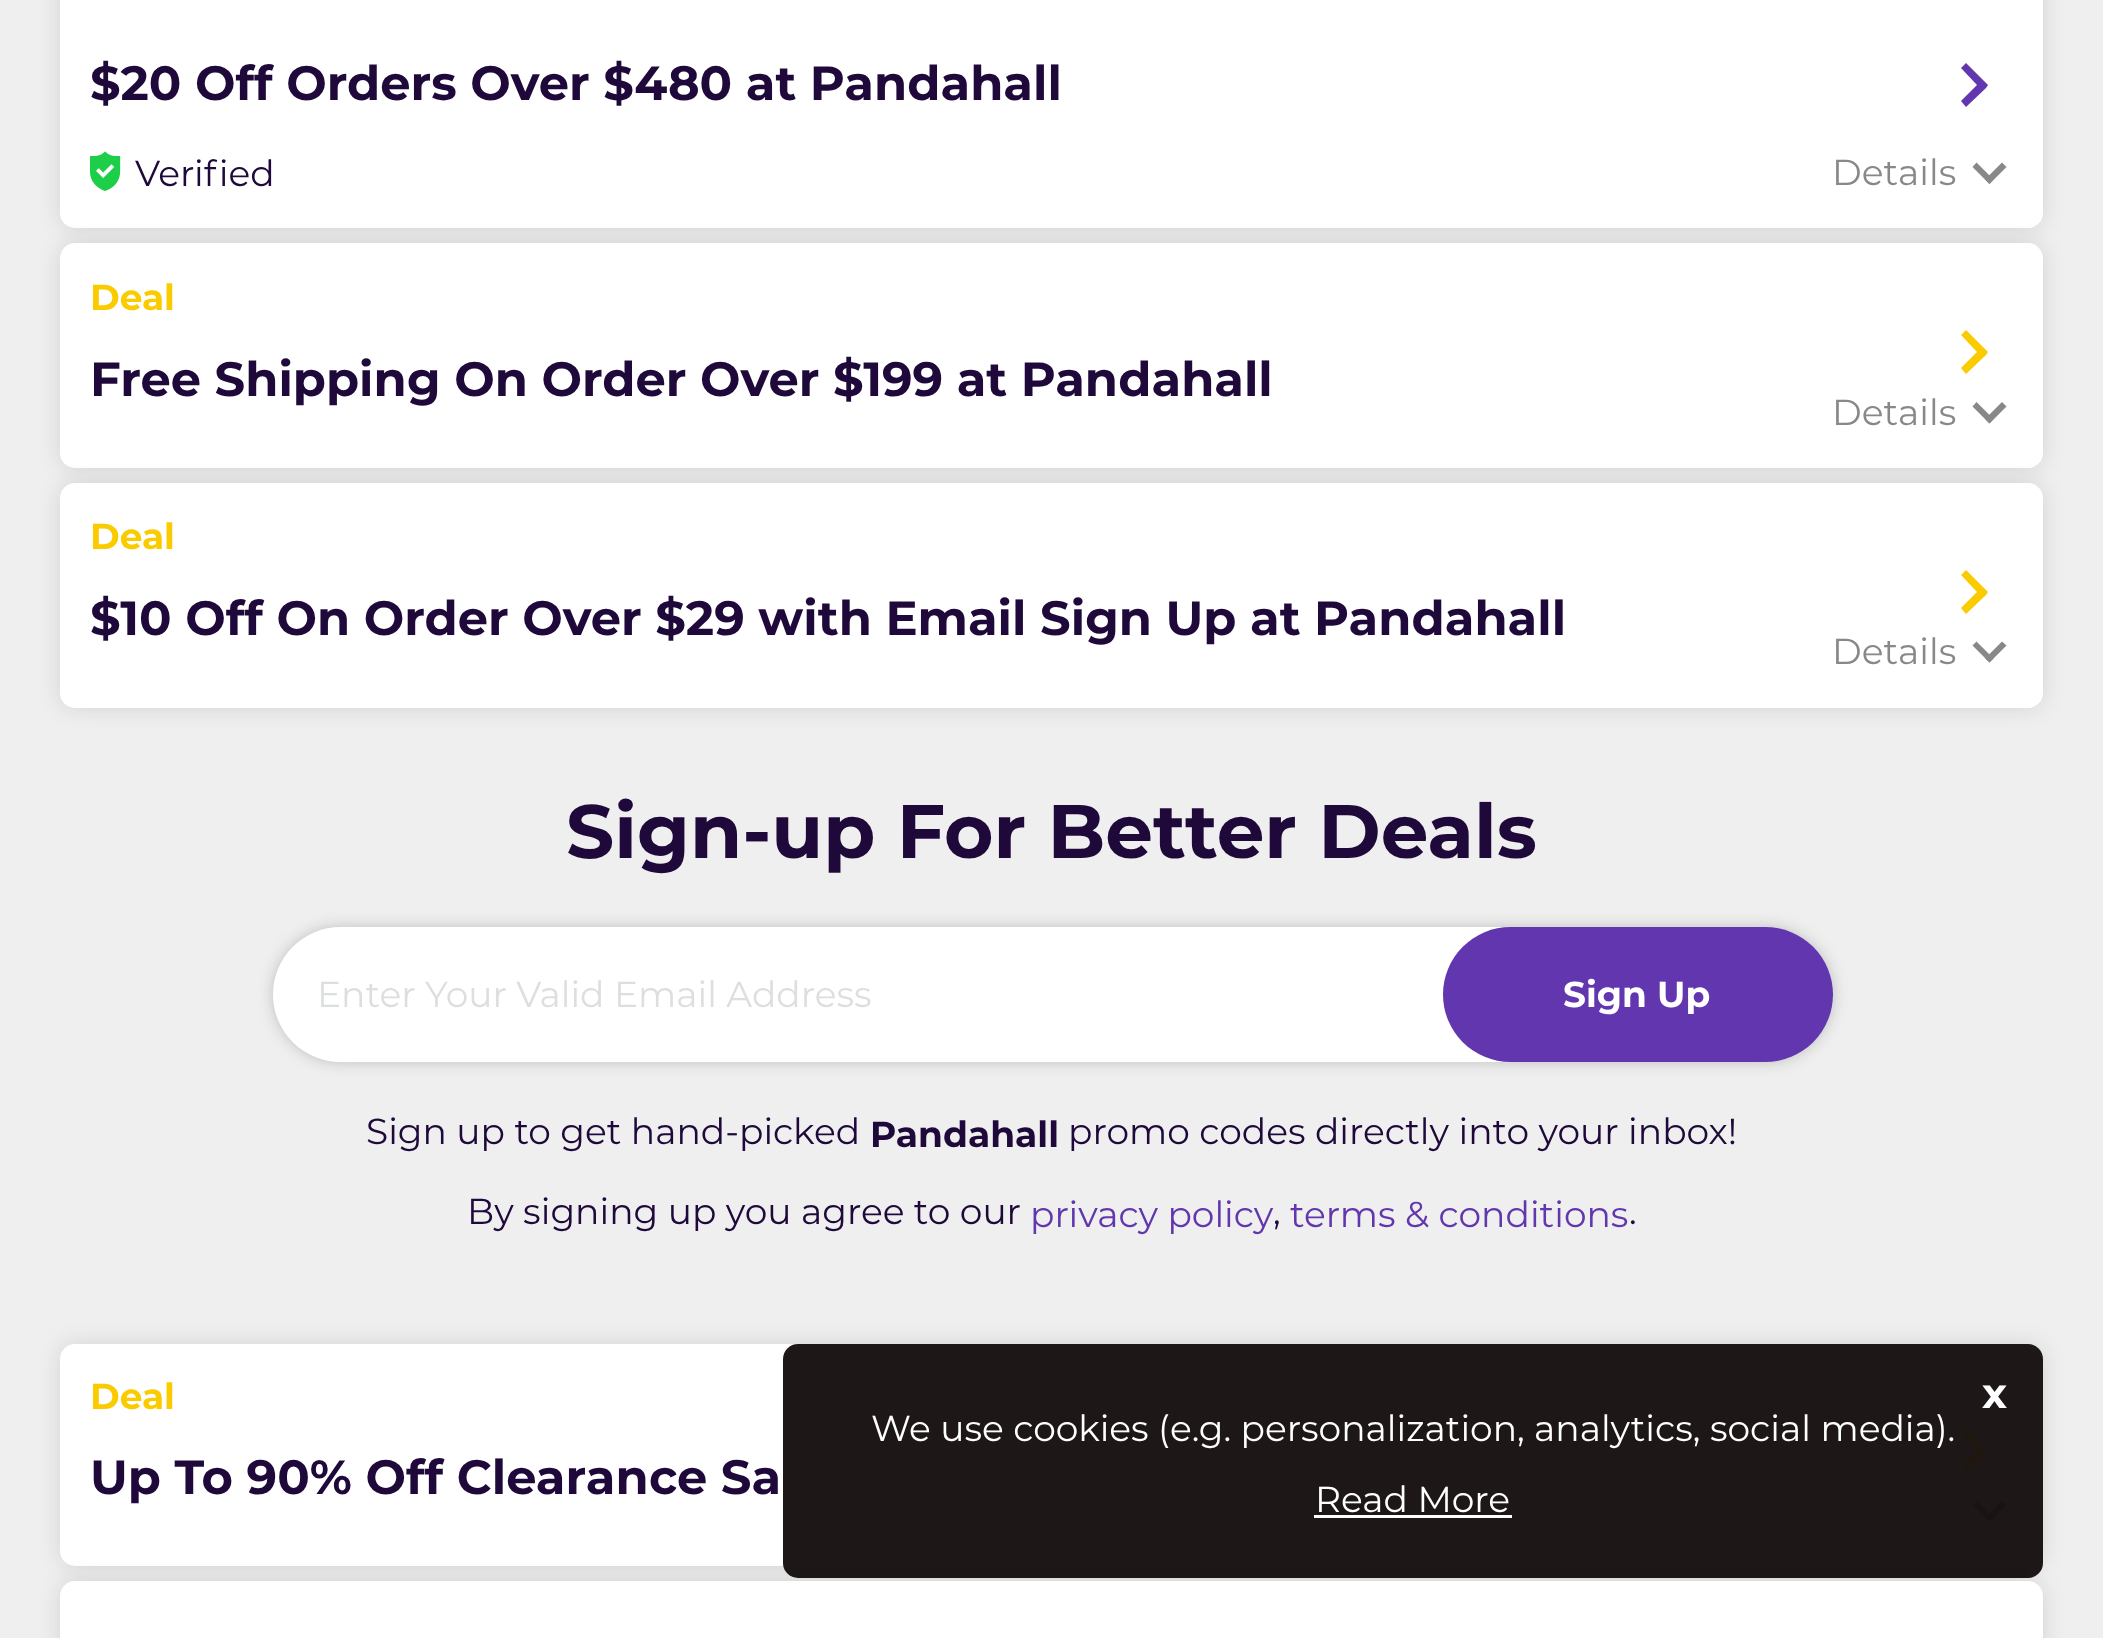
<?xml version="1.0" encoding="UTF-8"?>
<svg xmlns="http://www.w3.org/2000/svg" width="2103" height="1638">
    <defs>
        <filter id="blur1" x="-50%" y="-200%" width="200%" height="500%"><feGaussianBlur stdDeviation="10.5"/></filter>
        <filter id="blur2" x="-50%" y="-200%" width="200%" height="500%"><feGaussianBlur stdDeviation="7.5"/></filter>
    </defs>
    <rect width="100%" height="100%" fill="#EFEFEF"/>
    <rect x="60" y="-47" width="1983" height="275" rx="15" fill="#000000" fill-opacity="0.12" filter="url(#blur1)"/>
    <rect x="60" y="-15" width="1983" height="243" rx="15" fill="#FFFFFF"/>
    <text x="90" y="100" font-family="Montserrat" font-size="48" font-weight="700" fill="#1E093A">$20 Off Orders Over $480 at Pandahall</text>
    <image x="90" y="151" width="31" height="40" href="img_01.png"/>
    <text x="135" y="186" font-family="Montserrat" font-size="36" fill="#1E093A">Verified</text>
    <path d="M 1986 88 L 1988 85 L 1966 63 L 1961 68 L 1977 85 L 1961 101 L 1966 107 Z" fill="#6136AE"/>
    <text x="1832" y="185" font-family="Montserrat" font-size="36" fill="#888888">Details</text>
    <path d="M 1985 179.5 L 2002 162.5 L 2006.5 167 L 1989.5 184 Z" fill="#888888"/>
    <path d="M 1972.5 167 L 1976.5 162.5 L 1993.5 179.5 L 1989.5 184 Z" fill="#888888"/>
    <rect x="60" y="243" width="1983" height="225" rx="15" fill="#000000" fill-opacity="0.12" filter="url(#blur1)"/>
    <rect x="60" y="243" width="1983" height="225" rx="15" fill="#FFFFFF"/>
    <text x="90" y="310" font-family="Montserrat" font-size="36" font-weight="700" fill="#FACC00">Deal</text>
    <text x="90" y="396" font-family="Montserrat" font-size="48" font-weight="700" fill="#1E093A">Free Shipping On Order Over $199 at Pandahall</text>
    <path d="M 1986 355 L 1988 352 L 1966 330 L 1961 335 L 1977 352 L 1961 368 L 1966 374 Z" fill="#FACC00"/>
    <text x="1832" y="425" font-family="Montserrat" font-size="36" fill="#888888">Details</text>
    <path d="M 1985 419 L 2002 402 L 2006.5 406.5 L 1989.5 423.5 Z" fill="#888888"/>
    <path d="M 1972.5 406.5 L 1976.5 402 L 1993.5 419 L 1989.5 423.5 Z" fill="#888888"/>
    <rect x="60" y="483" width="1983" height="225" rx="15" fill="#000000" fill-opacity="0.12" filter="url(#blur1)"/>
    <rect x="60" y="483" width="1983" height="225" rx="15" fill="#FFFFFF"/>
    <text x="90" y="549" font-family="Montserrat" font-size="36" font-weight="700" fill="#FACC00">Deal</text>
    <text x="90" y="635" font-family="Montserrat" font-size="48" font-weight="700" fill="#1E093A">$10 Off On Order Over $29 with Email Sign Up at Pandahall</text>
    <path d="M 1986 595 L 1988 592 L 1966 570 L 1961 575 L 1977 592 L 1961 608 L 1966 614 Z" fill="#FACC00"/>
    <text x="1832" y="664" font-family="Montserrat" font-size="36" fill="#888888">Details</text>
    <path d="M 1985 658.5 L 2002 641.5 L 2006.5 645.5 L 1989.5 662.5 Z" fill="#888888"/>
    <path d="M 1972.5 645.5 L 1976.5 641.5 L 1993.5 658.5 L 1989.5 662.5 Z" fill="#888888"/>
    <text x="566" y="858" font-family="Montserrat" font-size="75.6" font-weight="700" fill="#1E093A">Sign-up For Better Deals</text>
    <rect x="273" y="927" width="1560" height="135" rx="67.5" fill="#000000" fill-opacity="0.2" filter="url(#blur2)"/>
    <rect x="273" y="927" width="1560" height="135" rx="67.5" fill="#FFFFFF"/>
    <text x="317" y="1007" font-family="Montserrat" font-size="36" fill="#DDDFDF">Enter Your Valid Email Address</text>
    <rect x="1443" y="927" width="390" height="135" rx="67.5" fill="#6136AE"/>
    <text x="1563" y="1007" font-family="Montserrat" font-size="36" font-weight="700" fill="#FFFFFF">Sign Up</text>
    <text x="366" y="1144" font-family="Montserrat" font-size="36" fill="#1E093A">Sign up to get hand-picked</text>
    <text x="870" y="1147" font-family="Montserrat" font-size="36" font-weight="700" fill="#1E093A">Pandahall</text>
    <text x="1068" y="1144" font-family="Montserrat" font-size="36" fill="#1E093A">promo codes directly into your inbox!</text>
    <text x="467" y="1224" font-family="Montserrat" font-size="36" fill="#1E093A">By signing up you agree to our</text>
    <text x="1030" y="1227" font-family="Montserrat" font-size="36" fill="#6136AE">privacy policy</text>
    <text x="1273" y="1224" font-family="Montserrat" font-size="36" fill="#1E093A">,</text>
    <text x="1290" y="1227" font-family="Montserrat" font-size="36" fill="#6136AE">terms &amp; conditions</text>
    <text x="1629" y="1224" font-family="Montserrat" font-size="36" fill="#1E093A">.</text>
    <rect x="60" y="1344" width="1983" height="222" rx="15" fill="#000000" fill-opacity="0.12" filter="url(#blur1)"/>
    <rect x="60" y="1344" width="1983" height="222" rx="15" fill="#FFFFFF"/>
    <text x="90" y="1409" font-family="Montserrat" font-size="36" font-weight="700" fill="#FACC00">Deal</text>
    <text x="90" y="1494" font-family="Montserrat" font-size="48" font-weight="700" fill="#1E093A">Up To 90% Off Clearance Sa</text>
    <path d="M 1986 1453 L 1988 1450 L 1966 1428 L 1961 1433 L 1977 1450 L 1961 1466 L 1966 1472 Z" fill="#FACC00"/>
    <path d="M 1985 1517.5 L 2002 1500.5 L 2006.5 1505 L 1989.5 1522 Z" fill="#888888"/>
    <path d="M 1972.5 1505 L 1976.5 1500.5 L 1993.5 1517.5 L 1989.5 1522 Z" fill="#888888"/>
    <rect x="60" y="1581" width="1983" height="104" rx="15" fill="#000000" fill-opacity="0.12" filter="url(#blur1)"/>
    <rect x="60" y="1581" width="1983" height="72" rx="15" fill="#FFFFFF"/>
    <rect x="783" y="1344" width="1260" height="234" rx="15" fill="#170F0F" fill-opacity="0.97"/>
    <text x="1982" y="1408" font-family="Montserrat" font-size="42" font-weight="700" fill="#FFFFFF">x</text>
    <text x="871" y="1441" font-family="Montserrat" font-size="36" fill="#FFFFFF">We use cookies (e.g. personalization, analytics, social media).</text>
    <text x="1315" y="1512" font-family="Montserrat" font-size="36" fill="#FFFFFF">Read More</text>
    <rect x="1314" y="1515" width="198" height="3" fill="#FFFFFF"/>
</svg>
